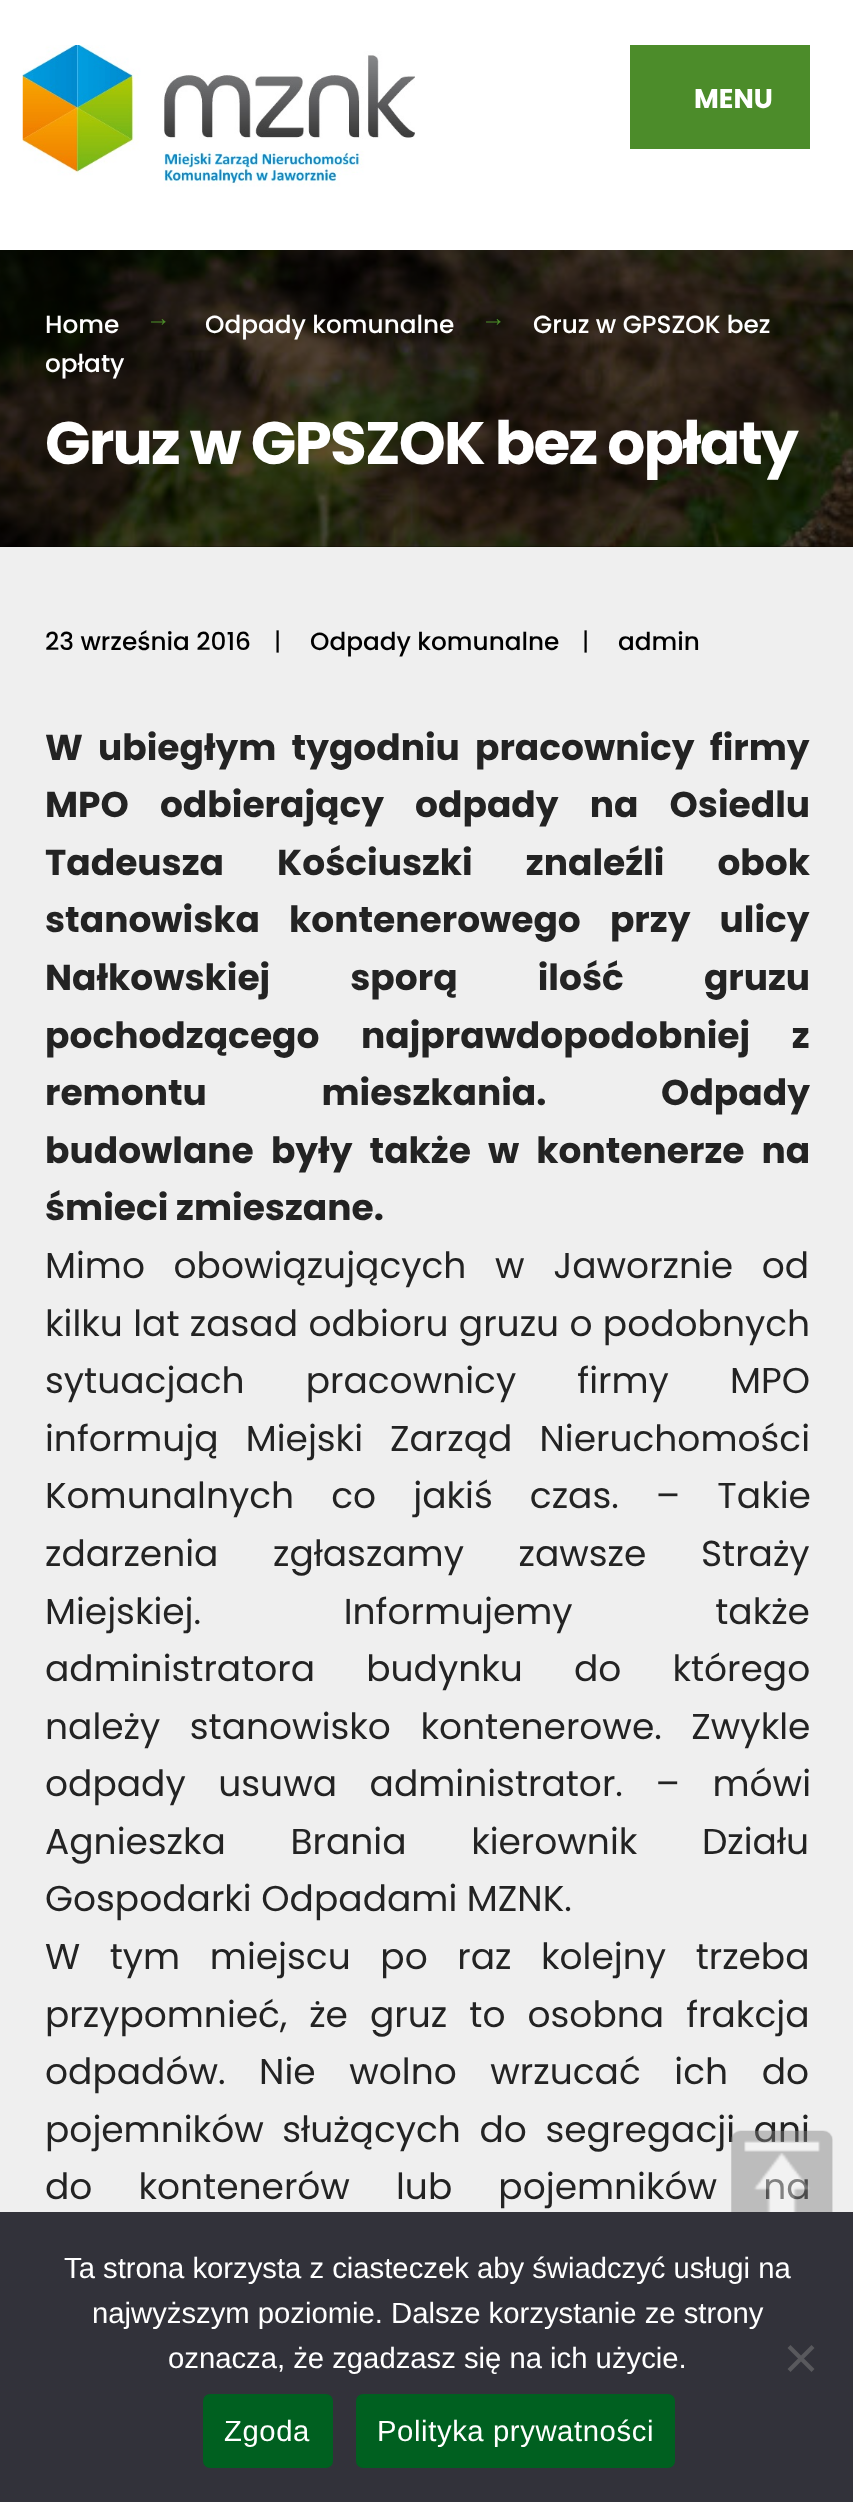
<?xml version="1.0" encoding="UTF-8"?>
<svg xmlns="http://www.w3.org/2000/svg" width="853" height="2502">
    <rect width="100%" height="100%" fill="#EFEFEF"/>
    <rect x="0" y="0" width="853" height="250" fill="#FFFFFF"/>
    <image x="22" y="45" width="393" height="142" href="img_01.png"/>
    <rect x="630" y="45" width="180" height="104" fill="#4C8C2A"/>
    <text x="694" y="108" font-family="Poppins" font-size="27" font-weight="700" fill="#FFFFFF">MENU</text>
    <rect x="0" y="250" width="853" height="297" fill="#000000"/>
    <image x="0" y="250" width="853" height="297" href="img_02.png"/>
    <text x="45" y="333" font-family="Poppins" font-size="24.75" font-weight="500" fill="#FFFFFF">Home</text>
    <text x="146" y="326" font-family="Liberation Sans" font-size="24.75" fill="#4C8C2A">→</text>
    <text x="205" y="333" font-family="Poppins" font-size="24.75" font-weight="500" fill="#FFFFFF">Odpady komunalne</text>
    <text x="481" y="326" font-family="Liberation Sans" font-size="24.75" fill="#4C8C2A">→</text>
    <text x="533" y="333" font-family="Poppins" font-size="24.75" font-weight="500" fill="#FFFFFF">Gruz w GPSZOK bez</text>
    <text x="45" y="372" font-family="Poppins" font-size="24.75" font-weight="500" fill="#FFFFFF">opłaty</text>
    <text x="45" y="464" font-family="Poppins" font-size="59.8" font-weight="700" letter-spacing="-1.8" fill="#FFFFFF">Gruz w GPSZOK bez opłaty</text>
    <text x="45" y="650" font-family="Poppins" font-size="24.75" font-weight="500" fill="#000000">23 września 2016</text>
    <text x="274" y="650" font-family="Poppins" font-size="24.75" fill="#000000">|</text>
    <text x="310" y="650" font-family="Poppins" font-size="24.75" font-weight="500" fill="#000000">Odpady komunalne</text>
    <text x="582" y="650" font-family="Poppins" font-size="24.75" fill="#000000">|</text>
    <text x="618" y="650" font-family="Poppins" font-size="24.75" font-weight="500" fill="#000000">admin</text>
    <text font-family="Poppins" font-size="36" font-weight="700" fill="#232323">
        <tspan x="45" y="760" word-spacing="7.5">W ubiegłym tygodniu pracownicy firmy</tspan>
        <tspan x="45" y="817" word-spacing="23.5">MPO odbierający odpady na Osiedlu</tspan>
        <tspan x="45" y="875" word-spacing="45.5">Tadeusza Kościuszki znaleźli obok</tspan>
        <tspan x="45" y="932" word-spacing="21.5">stanowiska kontenerowego przy ulicy</tspan>
        <tspan x="45" y="990" word-spacing="72.5">Nałkowskiej sporą ilość gruzu</tspan>
        <tspan x="45" y="1048" word-spacing="34">pochodzącego najprawdopodobniej z</tspan>
        <tspan x="45" y="1105" word-spacing="107">remontu mieszkania. Odpady</tspan>
        <tspan x="45" y="1163" word-spacing="9.5">budowlane były także w kontenerze na</tspan>
        <tspan x="45" y="1220">śmieci zmieszane.</tspan>
    </text>
    <text font-family="Poppins" font-size="36" fill="#232323">
        <tspan x="45" y="1278" word-spacing="19">Mimo obowiązujących w Jaworznie od</tspan>
        <tspan x="45" y="1336" word-spacing="0.75">kilku lat zasad odbioru gruzu o podobnych</tspan>
        <tspan x="45" y="1393" word-spacing="51.5">sytuacjach pracownicy firmy MPO</tspan>
        <tspan x="45" y="1451" word-spacing="17.5">informują Miejski Zarząd Nieruchomości</tspan>
        <tspan x="45" y="1508" word-spacing="27.5">Komunalnych co jakiś czas. – Takie</tspan>
        <tspan x="45" y="1566" word-spacing="45">zdarzenia zgłaszamy zawsze Straży</tspan>
        <tspan x="45" y="1624" word-spacing="133">Miejskiej. Informujemy także</tspan>
        <tspan x="45" y="1681" word-spacing="41.5">administratora budynku do którego</tspan>
        <tspan x="45" y="1739" word-spacing="20">należy stanowisko kontenerowe. Zwykle</tspan>
        <tspan x="45" y="1796" word-spacing="23">odpady usuwa administrator. – mówi</tspan>
        <tspan x="45" y="1854" word-spacing="55">Agnieszka Brania kierownik Działu</tspan>
        <tspan x="45" y="1911">Gospodarki Odpadami MZNK.</tspan>
        <tspan x="45" y="1969" word-spacing="20">W tym miejscu po raz kolejny trzeba</tspan>
        <tspan x="45" y="2027" word-spacing="12.5">przypomnieć, że gruz to osobna frakcja</tspan>
        <tspan x="45" y="2084" word-spacing="24">odpadów. Nie wolno wrzucać ich do</tspan>
        <tspan x="45" y="2142" word-spacing="9">pojemników służących do segregacji ani</tspan>
        <tspan x="45" y="2199" word-spacing="36.5">do kontenerów lub pojemników na</tspan>
    </text>
    <rect x="731" y="2131" width="102" height="101" rx="9" fill="#EFEFEF" fill-opacity="0.3"/>
    <image x="731" y="2130" width="102" height="82" href="img_03.png"/>
    <rect x="0" y="2212" width="853" height="290" fill="#32323A"/>
    <text x="64" y="2278" font-family="Liberation Sans" font-size="29.25" fill="#FFFFFF">Ta strona korzysta z ciasteczek aby świadczyć usługi na</text>
    <text x="92" y="2323" font-family="Liberation Sans" font-size="29.25" fill="#FFFFFF">najwyższym poziomie. Dalsze korzystanie ze strony</text>
    <text x="168" y="2368" font-family="Liberation Sans" font-size="29.25" fill="#FFFFFF">oznacza, że zgadzasz się na ich użycie.</text>
    <path d="M 811.5 2345 L 814.5 2348 L 790.5 2372 L 787.5 2369 Z" fill="#59595D"/>
    <path d="M 787.5 2348 L 790.5 2345 L 814.5 2369 L 811.5 2372 Z" fill="#59595D"/>
    <rect x="203" y="2394" width="130" height="74" rx="7" fill="#006020"/>
    <text x="224" y="2441" font-family="Liberation Sans" font-size="29.25" letter-spacing="0.6" fill="#FFFFFF">Zgoda</text>
    <rect x="356" y="2394" width="319" height="74" rx="7" fill="#006020"/>
    <text x="377" y="2441" font-family="Liberation Sans" font-size="29.25" letter-spacing="0.6" fill="#FFFFFF">Polityka prywatności</text>
</svg>
